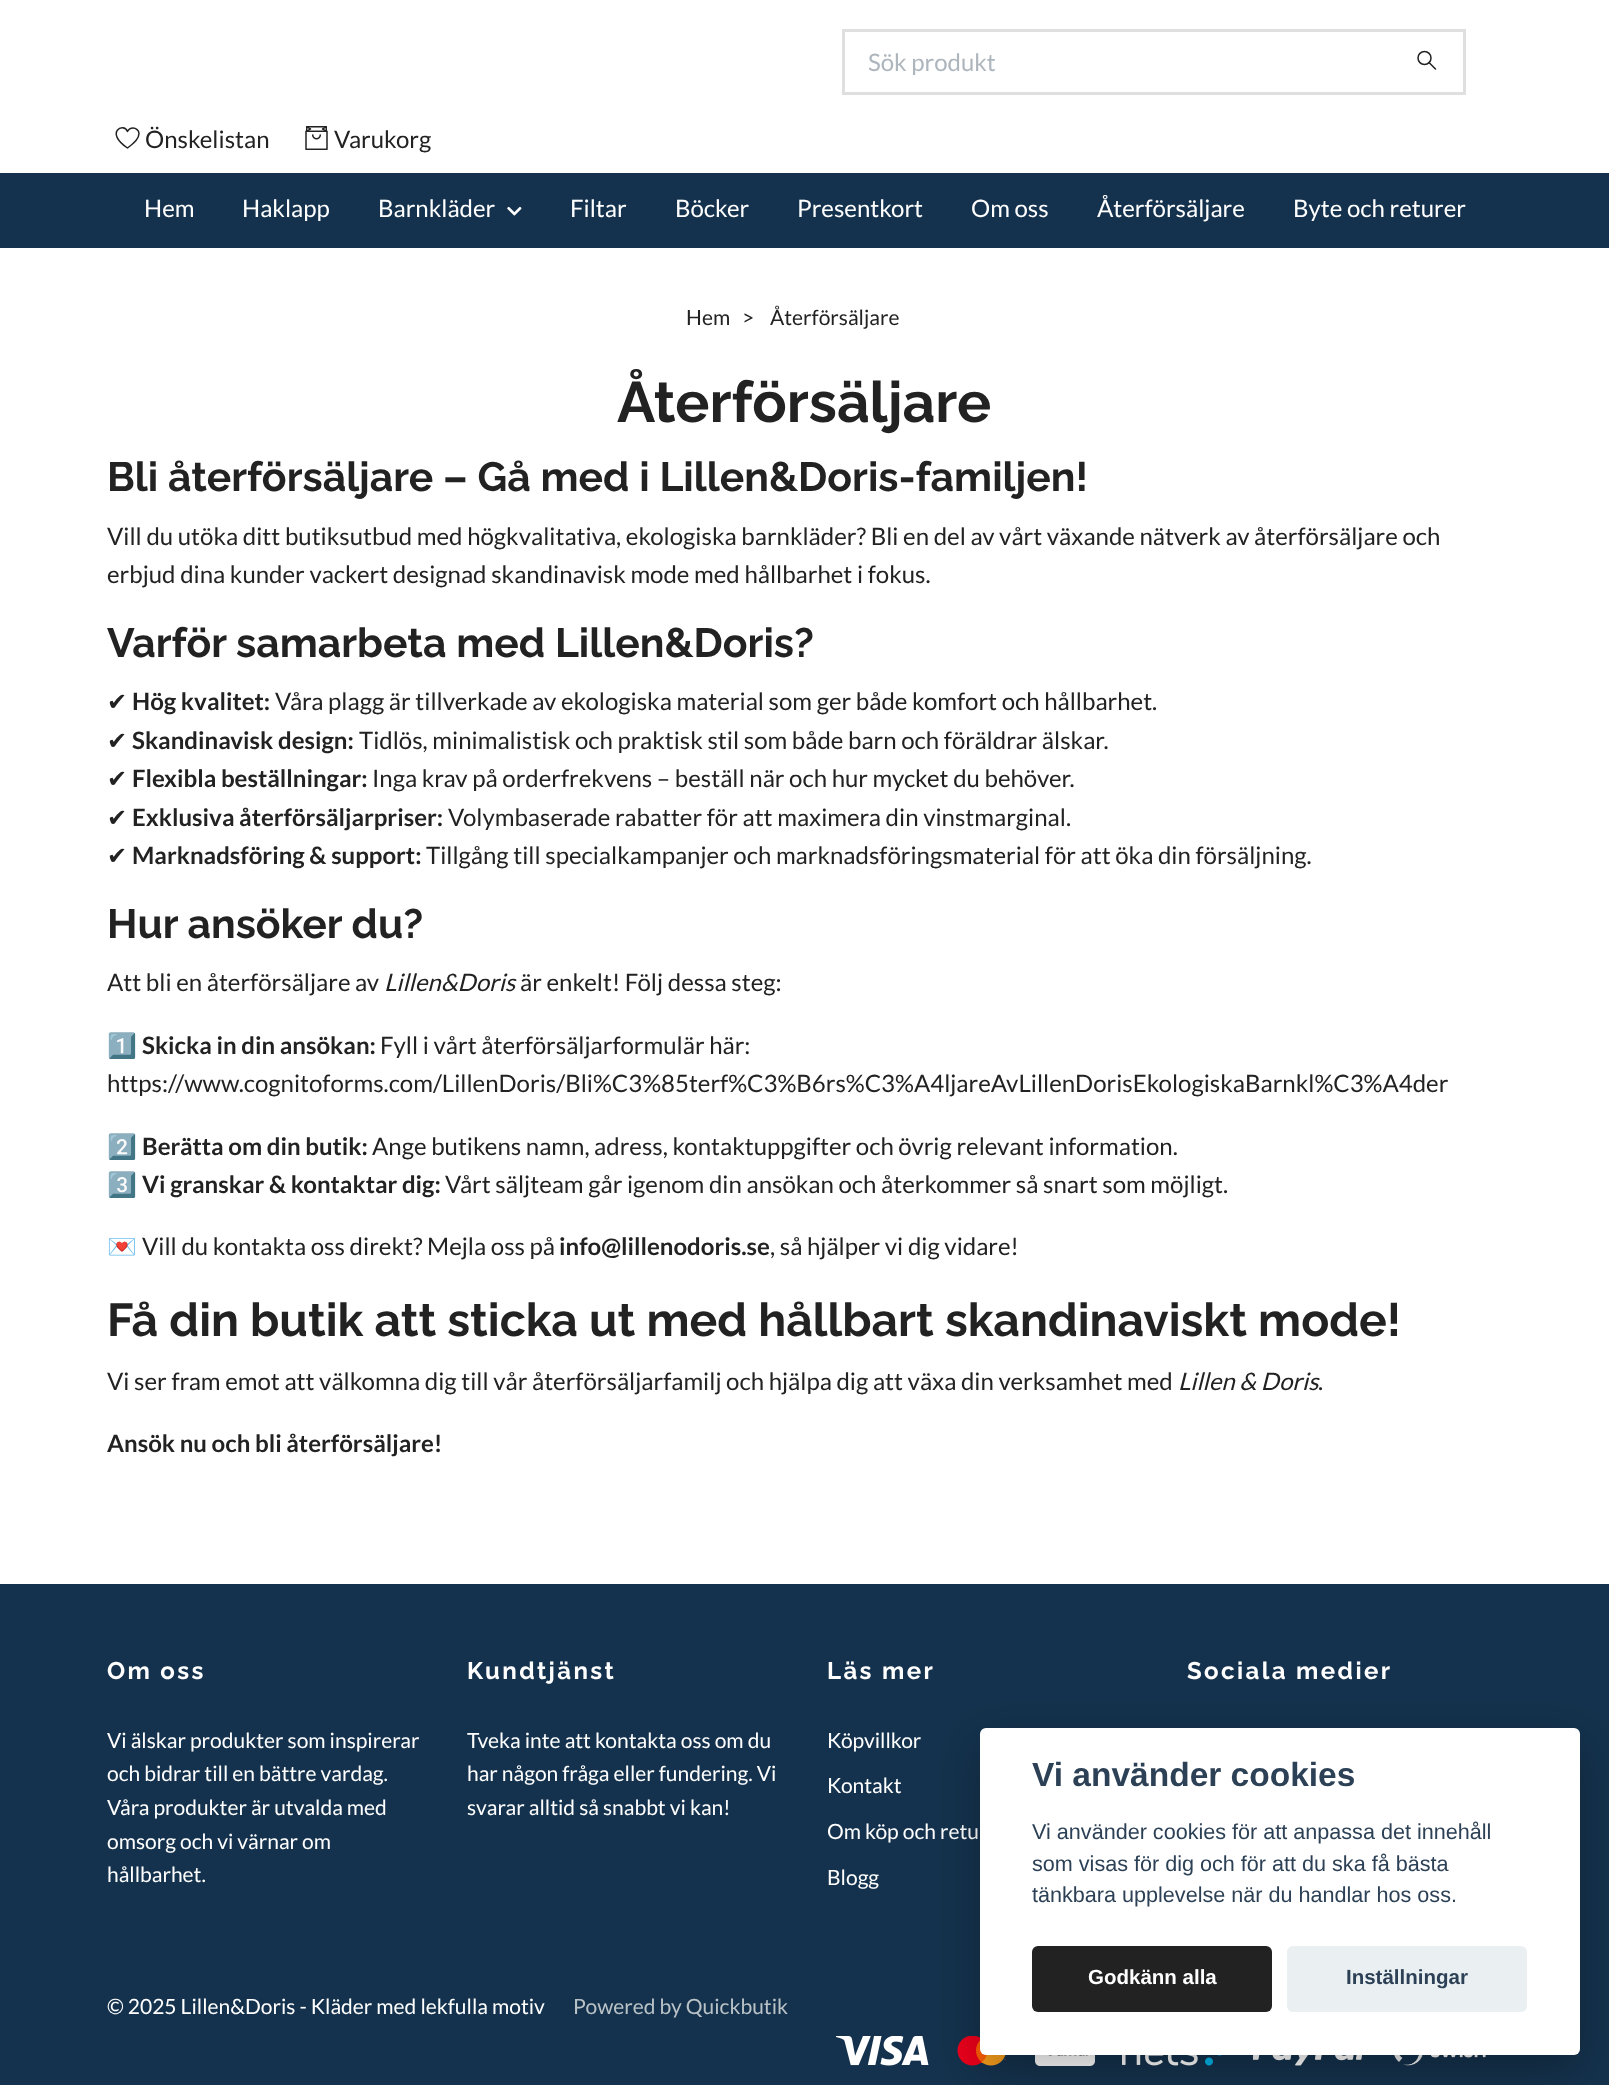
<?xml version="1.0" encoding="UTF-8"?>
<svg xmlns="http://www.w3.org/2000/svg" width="1609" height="2085">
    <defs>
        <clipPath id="clip1"><rect x="869" y="47" width="504" height="28"/></clipPath>
        <filter id="blur1" x="-50%" y="-200%" width="200%" height="500%"><feGaussianBlur stdDeviation="22.5"/></filter>
    </defs>
    <rect width="100%" height="100%" fill="#FFFFFF"/>
    <rect x="843.5" y="30.5" width="621" height="63" fill="none" stroke="#DFDFDF" stroke-width="3"/>
    <g clip-path="url(#clip1)">
        <text x="868" y="71" font-family="Lato" font-size="24" fill="#ADB5BD">Sök produkt</text>
    </g>
    <path d="M 1429 62.5 L 1435.5 69" fill="none" stroke="#222222" stroke-width="1.5" stroke-linecap="round" stroke-linejoin="round"/>
    <circle cx="1424.5" cy="58" r="6.5" fill="none" stroke="#222222" stroke-width="1.5"/>
    <path d="M 133 128 C 130.5 128 128.5 129.5 127.5 131.5 C 124 122 104 132 127.5 148 C 134.5 143 139 138.5 139 133.5 C 139 130.5 136 128 133 128 Z" fill="none" stroke="#222222" stroke-width="1.5" stroke-linecap="round" stroke-linejoin="round"/>
    <text x="145" y="148" font-family="Lato" font-size="24" fill="#222222">Önskelistan</text>
    <image x="305" y="126" width="23" height="24" href="img_01.png"/>
    <text x="334" y="148" font-family="Lato" font-size="24" fill="#222222">Varukorg</text>
    <rect x="0" y="173" width="1609" height="75" fill="#14324D"/>
    <text x="144" y="217" font-family="Lato" font-size="24" fill="#FFFFFF">Hem</text>
    <text x="242" y="217" font-family="Lato" font-size="24" fill="#FFFFFF">Haklapp</text>
    <text x="378" y="217" font-family="Lato" font-size="24" fill="#FFFFFF">Barnkläder</text>
    <image x="507" y="206" width="15" height="10" href="img_02.png"/>
    <text x="570" y="217" font-family="Lato" font-size="24" fill="#FFFFFF">Filtar</text>
    <text x="675" y="217" font-family="Lato" font-size="24" fill="#FFFFFF">Böcker</text>
    <text x="797" y="217" font-family="Lato" font-size="24" fill="#FFFFFF">Presentkort</text>
    <text x="971" y="217" font-family="Lato" font-size="24" fill="#FFFFFF">Om oss</text>
    <text x="1097" y="217" font-family="Lato" font-size="24" fill="#FFFFFF">Återförsäljare</text>
    <text x="1293" y="217" font-family="Lato" font-size="24" fill="#FFFFFF">Byte och returer</text>
    <text x="686" y="325" font-family="Lato" font-size="21" fill="#222222">Hem</text>
    <text x="742" y="325" font-family="Lato" font-size="21" fill="#222222">&gt;</text>
    <text x="770" y="325" font-family="Lato" font-size="21" fill="#222222">Återförsäljare</text>
    <text x="617" y="422" font-family="Raleway" font-size="57" font-weight="700" fill="#222222">Återförsäljare</text>
    <text x="107" y="491" font-family="Raleway" font-size="40.9" font-weight="700" fill="#222222">Bli återförsäljare – Gå med i Lillen&amp;Doris-familjen!</text>
    <text font-family="Lato" font-size="24" fill="#222222">
        <tspan x="107" y="545">Vill du utöka ditt butiksutbud med högkvalitativa, ekologiska barnkläder? Bli en del av vårt växande nätverk av återförsäljare och</tspan>
        <tspan x="107" y="583">erbjud dina kunder vackert designad skandinavisk mode med hållbarhet i fokus.</tspan>
    </text>
    <text x="107" y="657" font-family="Raleway" font-size="40.9" font-weight="700" fill="#222222">Varför samarbeta med Lillen&amp;Doris?</text>
    <text x="107" y="710" font-family="DejaVu Sans" font-size="24" fill="#222222">✔</text>
    <text x="132" y="710" font-family="Lato" font-size="24" font-weight="700" fill="#222222">Hög kvalitet:</text>
    <text x="275" y="710" font-family="Lato" font-size="24" fill="#222222">Våra plagg är tillverkade av ekologiska material som ger både komfort och hållbarhet.</text>
    <text x="107" y="749" font-family="DejaVu Sans" font-size="24" fill="#222222">✔</text>
    <text x="132" y="749" font-family="Lato" font-size="24" font-weight="700" fill="#222222">Skandinavisk design:</text>
    <text x="359" y="749" font-family="Lato" font-size="24" fill="#222222">Tidlös, minimalistisk och praktisk stil som både barn och föräldrar älskar.</text>
    <text x="107" y="787" font-family="DejaVu Sans" font-size="24" fill="#222222">✔</text>
    <text x="132" y="787" font-family="Lato" font-size="24" font-weight="700" fill="#222222">Flexibla beställningar:</text>
    <text x="372" y="787" font-family="Lato" font-size="24" fill="#222222">Inga krav på orderfrekvens – beställ när och hur mycket du behöver.</text>
    <text x="107" y="826" font-family="DejaVu Sans" font-size="24" fill="#222222">✔</text>
    <text x="132" y="826" font-family="Lato" font-size="24" font-weight="700" fill="#222222">Exklusiva återförsäljarpriser:</text>
    <text x="448" y="826" font-family="Lato" font-size="24" fill="#222222">Volymbaserade rabatter för att maximera din vinstmarginal.</text>
    <text x="107" y="864" font-family="DejaVu Sans" font-size="24" fill="#222222">✔</text>
    <text x="132" y="864" font-family="Lato" font-size="24" font-weight="700" fill="#222222">Marknadsföring &amp; support:</text>
    <text x="426" y="864" font-family="Lato" font-size="24" fill="#222222">Tillgång till specialkampanjer och marknadsföringsmaterial för att öka din försäljning.</text>
    <text x="107" y="938" font-family="Raleway" font-size="40.9" font-weight="700" fill="#222222">Hur ansöker du?</text>
    <text x="107" y="991" font-family="Lato" font-size="24" fill="#222222">Att bli en återförsäljare av</text>
    <text x="384" y="991" font-family="Lato" font-size="24" font-style="italic" fill="#222222">Lillen&amp;Doris</text>
    <text x="520" y="991" font-family="Lato" font-size="24" fill="#222222">är enkelt! Följ dessa steg:</text>
    <text x="107" y="1054" font-family="Noto Color Emoji" font-size="24" fill="#222222">1️⃣</text>
    <text x="142" y="1054" font-family="Lato" font-size="24" font-weight="700" fill="#222222">Skicka in din ansökan:</text>
    <text x="380" y="1054" font-family="Lato" font-size="24" fill="#222222">Fyll i vårt återförsäljarformulär här:</text>
    <text x="107" y="1092" font-family="Lato" font-size="24" fill="#222222">https://www.cognitoforms.com/LillenDoris/Bli%C3%85terf%C3%B6rs%C3%A4ljareAvLillenDorisEkologiskaBarnkl%C3%A4der</text>
    <text x="107" y="1155" font-family="Noto Color Emoji" font-size="24" fill="#222222">2️⃣</text>
    <text x="142" y="1155" font-family="Lato" font-size="24" font-weight="700" fill="#222222">Berätta om din butik:</text>
    <text x="372" y="1155" font-family="Lato" font-size="24" fill="#222222">Ange butikens namn, adress, kontaktuppgifter och övrig relevant information.</text>
    <text x="107" y="1193" font-family="Noto Color Emoji" font-size="24" fill="#222222">3️⃣</text>
    <text x="142" y="1193" font-family="Lato" font-size="24" font-weight="700" fill="#222222">Vi granskar &amp; kontaktar dig:</text>
    <text x="445" y="1193" font-family="Lato" font-size="24" fill="#222222">Vårt säljteam går igenom din ansökan och återkommer så snart som möjligt.</text>
    <text x="107" y="1255" font-family="Noto Color Emoji" font-size="24" fill="#222222">💌</text>
    <text x="142" y="1255" font-family="Lato" font-size="24" fill="#222222">Vill du kontakta oss direkt? Mejla oss på</text>
    <text x="559" y="1255" font-family="Lato" font-size="24" font-weight="700" fill="#222222">info@lillenodoris.se</text>
    <text x="770" y="1255" font-family="Lato" font-size="24" fill="#222222">, så hjälper vi dig vidare!</text>
    <text x="107" y="1336" font-family="Raleway" font-size="46.3" font-weight="700" fill="#222222">Få din butik att sticka ut med hållbart skandinaviskt mode!</text>
    <text x="107" y="1390" font-family="Lato" font-size="24" fill="#222222">Vi ser fram emot att välkomna dig till vår återförsäljarfamilj och hjälpa dig att växa din verksamhet med</text>
    <text x="1178" y="1390" font-family="Lato" font-size="24" font-style="italic" fill="#222222">Lillen &amp; Doris</text>
    <text x="1318" y="1390" font-family="Lato" font-size="24" fill="#222222">.</text>
    <text x="107" y="1452" font-family="Lato" font-size="24" font-weight="700" fill="#222222">Ansök nu och bli återförsäljare!</text>
    <rect x="0" y="1584" width="1609" height="501" fill="#14324D"/>
    <text x="107" y="1679" font-family="Raleway" font-size="24" font-weight="700" letter-spacing="2.4" fill="#FFFFFF">Om oss</text>
    <text font-family="Lato" font-size="21" fill="#FFFFFF">
        <tspan x="107" y="1748">Vi älskar produkter som inspirerar</tspan>
        <tspan x="107" y="1781">och bidrar till en bättre vardag.</tspan>
        <tspan x="107" y="1815">Våra produkter är utvalda med</tspan>
        <tspan x="107" y="1849">omsorg och vi värnar om</tspan>
        <tspan x="107" y="1882">hållbarhet.</tspan>
    </text>
    <text x="467" y="1679" font-family="Raleway" font-size="24" font-weight="700" letter-spacing="2.4" fill="#FFFFFF">Kundtjänst</text>
    <text font-family="Lato" font-size="21" fill="#FFFFFF">
        <tspan x="467" y="1748">Tveka inte att kontakta oss om du</tspan>
        <tspan x="467" y="1781">har någon fråga eller fundering. Vi</tspan>
        <tspan x="467" y="1815">svarar alltid så snabbt vi kan!</tspan>
    </text>
    <text x="827" y="1679" font-family="Raleway" font-size="24" font-weight="700" letter-spacing="2.4" fill="#FFFFFF">Läs mer</text>
    <text x="827" y="1748" font-family="Lato" font-size="21" fill="#FFFFFF">Köpvillkor</text>
    <text x="827" y="1793" font-family="Lato" font-size="21" fill="#FFFFFF">Kontakt</text>
    <text x="827" y="1839" font-family="Lato" font-size="21" fill="#FFFFFF">Om köp och retu</text>
    <text x="827" y="1885" font-family="Lato" font-size="21" fill="#FFFFFF">Blogg</text>
    <text x="1187" y="1679" font-family="Raleway" font-size="24" font-weight="700" letter-spacing="2.4" fill="#FFFFFF">Sociala medier</text>
    <text x="107" y="2014" font-family="Lato" font-size="21" fill="#FFFFFF">© 2025 Lillen&amp;Doris - Kläder med lekfulla motiv</text>
    <text x="573" y="2014" font-family="Lato" font-size="21" fill="#B9C2C6">Powered by Quickbutik</text>
    <image x="836" y="2036" width="93" height="30" href="img_03.png"/>
    <image x="957" y="2036" width="49" height="30" href="img_04.png"/>
    <image x="1035" y="2055" width="60" height="11" href="img_05.png"/>
    <image x="1122" y="2055" width="100" height="11" href="img_06.png"/>
    <image x="1253" y="2055" width="109" height="11" href="img_07.png"/>
    <image x="1394" y="2055" width="92" height="11" href="img_08.png"/>
    <rect x="980" y="1743" width="600" height="327" rx="6" fill="#020203" fill-opacity="0.28" filter="url(#blur1)"/>
    <rect x="980" y="1728" width="600" height="327" rx="6" fill="#FFFFFF"/>
    <text x="1032" y="1786" font-family="Liberation Sans" font-size="33.5" font-weight="700" fill="#2D4156">Vi använder cookies</text>
    <text font-family="Liberation Sans" font-size="21.6" fill="#2D4156">
        <tspan x="1032" y="1839">Vi använder cookies för att anpassa det innehåll</tspan>
        <tspan x="1032" y="1871">som visas för dig och för att du ska få bästa</tspan>
        <tspan x="1032" y="1902">tänkbara upplevelse när du handlar hos oss.</tspan>
    </text>
    <rect x="1032" y="1946" width="240" height="66" rx="6" fill="#222222"/>
    <text x="1088" y="1984" font-family="Liberation Sans" font-size="20.5" font-weight="700" fill="#FFFFFF">Godkänn alla</text>
    <rect x="1287" y="1946" width="240" height="66" rx="6" fill="#EAEFF2"/>
    <text x="1346" y="1984" font-family="Liberation Sans" font-size="20.5" font-weight="700" fill="#2D4156">Inställningar</text>
</svg>
